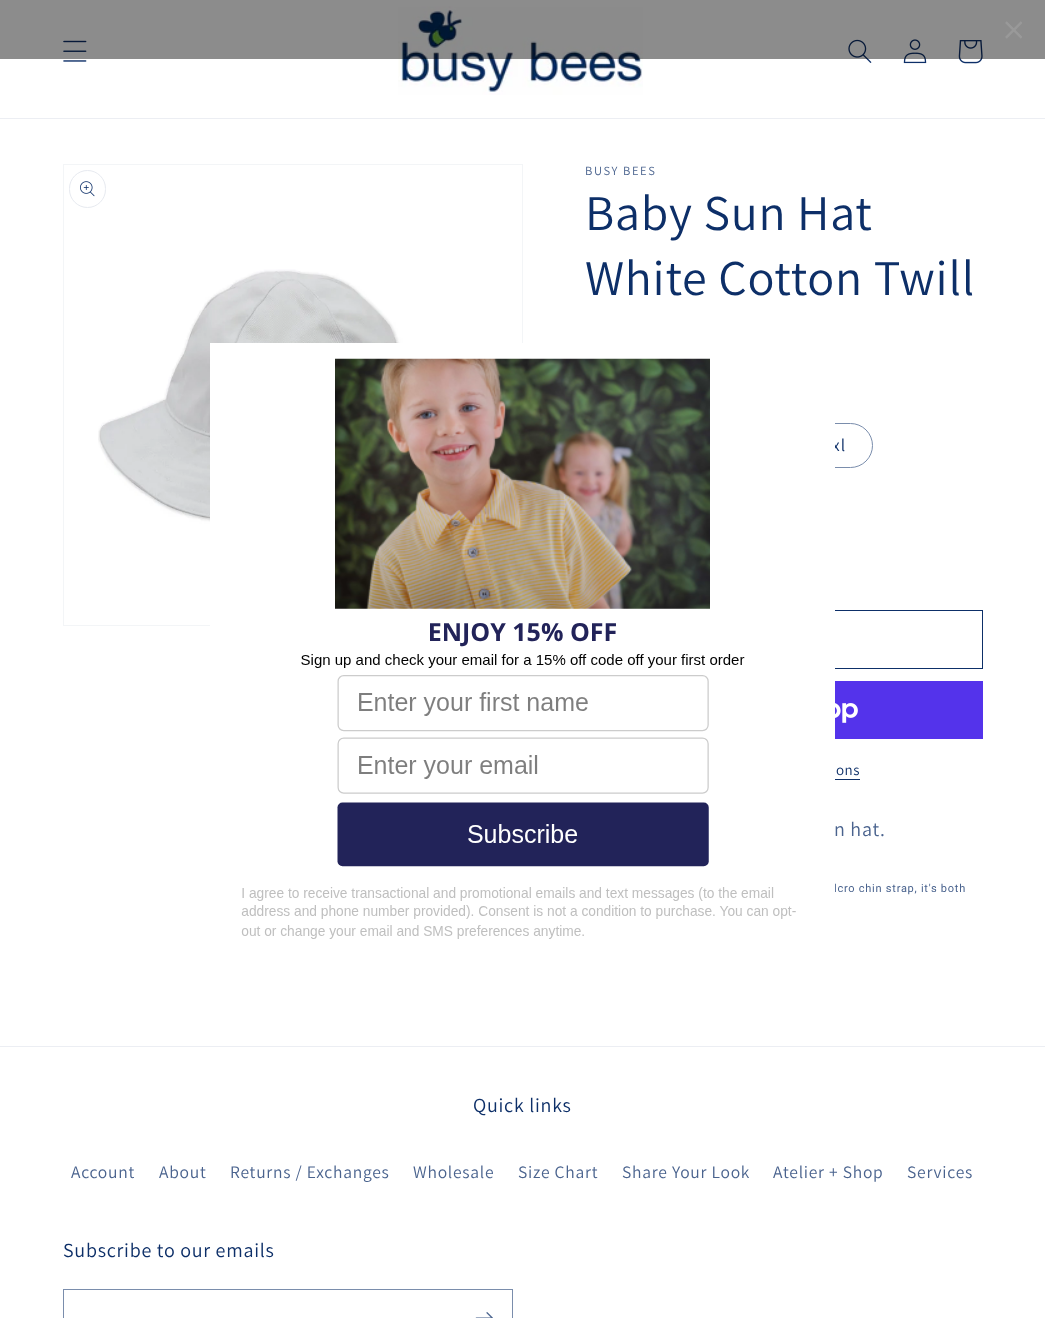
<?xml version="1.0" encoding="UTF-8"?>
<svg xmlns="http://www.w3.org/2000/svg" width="1045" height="1318">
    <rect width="100%" height="100%" fill="#FFFFFF"/>
    <image x="63" y="40" width="24" height="22" href="img_03.png"/>
    <image x="398" y="6" width="245" height="89" href="img_04.png"/>
    <image x="848" y="39" width="24" height="24" href="img_05.png"/>
    <image x="903" y="39" width="24" height="25" href="img_06.png"/>
    <image x="958" y="40" width="25" height="24" href="img_07.png"/>
    <rect x="0" y="0" width="1045" height="59" fill="#000000" fill-opacity="0.45"/>
    <image x="1005" y="21" width="17" height="18" href="img_01.png"/>
    <rect x="63.5" y="164.5" width="459" height="461" fill="none" stroke="#F3F5F7"/>
    <image x="98" y="269" width="387" height="255" href="img_08.png"/>
    <rect x="805.5" y="423.5" width="67" height="44" rx="22" fill="none" stroke="#7A8DAC"/>
    <text x="832" y="451" font-family="Assistant" font-size="17.5" letter-spacing="1" fill="#0D2F68">xl</text>
    <rect x="585.5" y="610.5" width="397" height="58" fill="none" stroke="#0D2F68"/>
    <text x="834" y="892" font-family="Roboto" font-size="11" letter-spacing="0.75" fill="#4A638E">lcro chin strap, it's both</text>
    <image x="210" y="343" width="625" height="596" href="img_02.png"/>
    <rect x="0" y="118" width="1045" height="1" fill="#ECEEF3"/>
    <rect x="69.5" y="170.5" width="36" height="37" rx="18" fill="none" stroke="#E7EAF0"/>
    <image x="80" y="181" width="15" height="16" href="img_09.png"/>
    <text x="585" y="175" font-family="Assistant" font-size="12.5" letter-spacing="1.6" fill="#4A638E">BUSY BEES</text>
    <text font-family="Assistant" font-size="50" letter-spacing="0.75" fill="#0D2F68">
        <tspan x="585" y="230">Baby Sun Hat</tspan>
        <tspan x="585" y="295">White Cotton Twill</tspan>
    </text>
    <rect x="835" y="681" width="148" height="58" fill="#5433EB"/>
    <image x="835" y="703" width="23" height="20" href="img_10.png"/>
    <text x="836" y="775" font-family="Assistant" font-size="15" letter-spacing="0.5" fill="#0D2F68">ons</text>
    <rect x="835" y="779" width="25" height="1" fill="#0D2F68"/>
    <text x="834" y="836" font-family="Assistant" font-size="20" letter-spacing="0.75" fill="#4A638E">n hat.</text>
    <rect x="0" y="1046" width="1045" height="1" fill="#ECEEF3"/>
    <text x="473" y="1112" font-family="Assistant" font-size="20" letter-spacing="0.75" fill="#0D2F68">Quick links</text>
    <text x="71" y="1178" font-family="Assistant" font-size="17.5" letter-spacing="0.75" fill="#4A638E">Account</text>
    <text x="159" y="1178" font-family="Assistant" font-size="17.5" letter-spacing="0.75" fill="#4A638E">About</text>
    <text x="230" y="1178" font-family="Assistant" font-size="17.5" letter-spacing="0.75" fill="#4A638E">Returns / Exchanges</text>
    <text x="413" y="1178" font-family="Assistant" font-size="17.5" letter-spacing="0.75" fill="#4A638E">Wholesale</text>
    <text x="518" y="1178" font-family="Assistant" font-size="17.5" letter-spacing="0.75" fill="#4A638E">Size Chart</text>
    <text x="622" y="1178" font-family="Assistant" font-size="17.5" letter-spacing="0.75" fill="#4A638E">Share Your Look</text>
    <text x="773" y="1178" font-family="Assistant" font-size="17.5" letter-spacing="0.75" fill="#4A638E">Atelier + Shop</text>
    <text x="907" y="1178" font-family="Assistant" font-size="17.5" letter-spacing="0.75" fill="#4A638E">Services</text>
    <text x="63" y="1257" font-family="Assistant" font-size="20" letter-spacing="0.75" fill="#0D2F68">Subscribe to our emails</text>
    <rect x="63.5" y="1289.5" width="449" height="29" fill="none" stroke="#7A8DAC"/>
    <image x="475" y="1312" width="18" height="6" href="img_11.png"/>
</svg>
